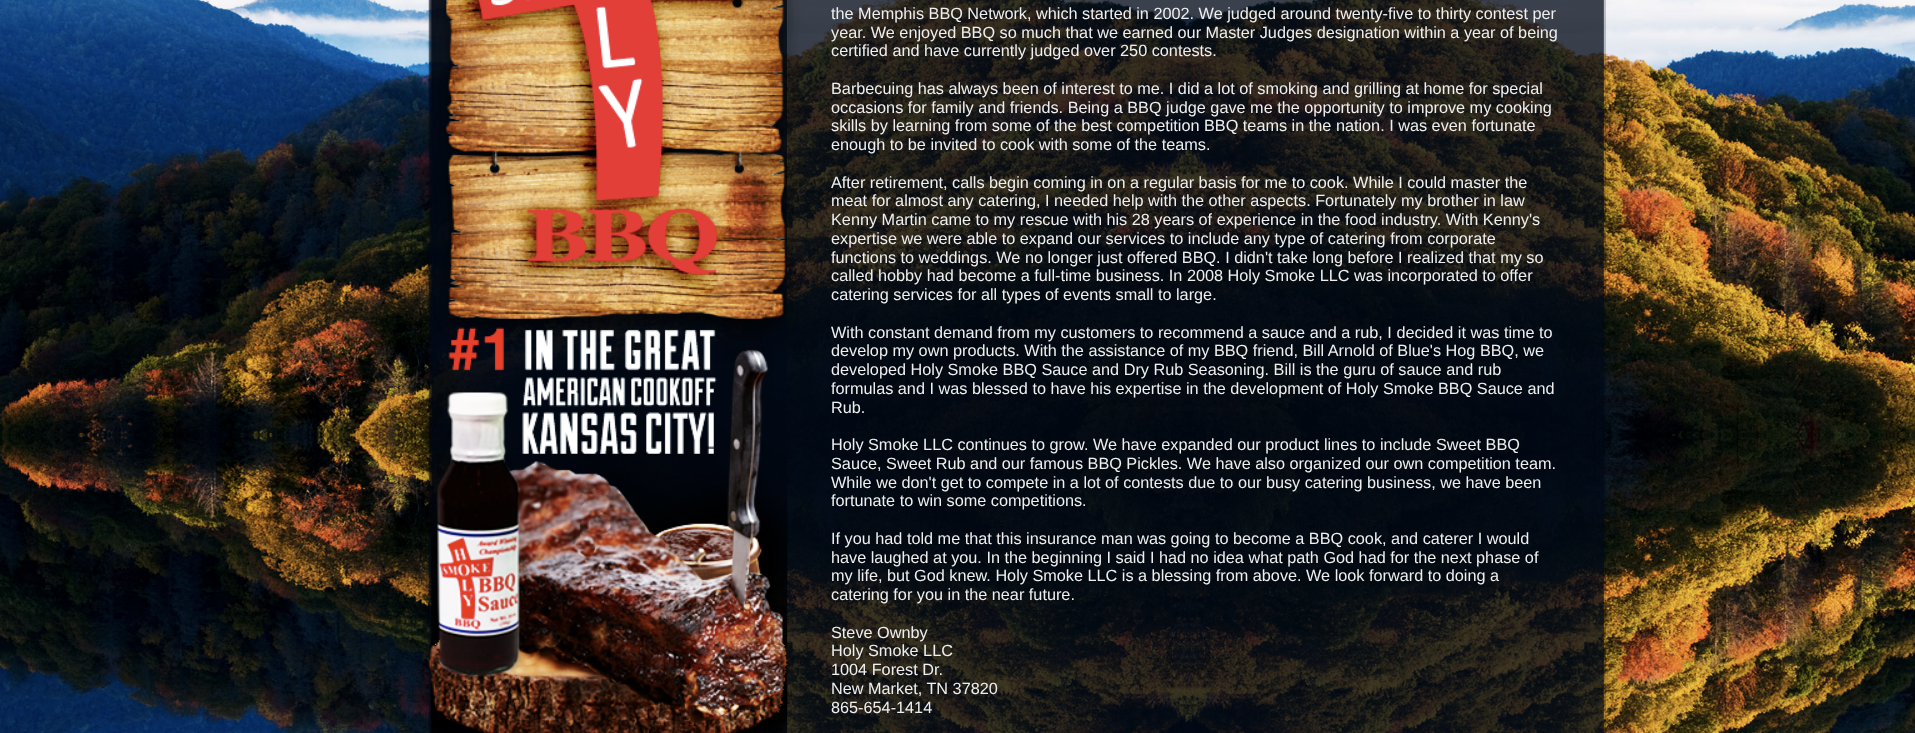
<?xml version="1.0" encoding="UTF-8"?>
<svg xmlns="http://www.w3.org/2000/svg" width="1915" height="733">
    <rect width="100%" height="100%" fill="#FFFFFF"/>
    <image x="0" y="0" width="1915" height="733" href="img_01.png"/>
    <image x="431" y="0" width="357" height="733" href="img_03.png"/>
    <image x="211" y="0" width="221" height="733" href="img_02.png"/>
    <image x="787" y="0" width="817" height="733" href="img_05.png"/>
    <image x="431" y="0" width="357" height="733" href="img_04.png"/>
    <text font-family="Liberation Sans" font-size="16.25" fill="#EFEFEF">
        <tspan x="831" y="19">the Memphis BBQ Network, which started in 2002. We judged around twenty-five to thirty contest per</tspan>
        <tspan x="831" y="38">year. We enjoyed BBQ so much that we earned our Master Judges designation within a year of being</tspan>
        <tspan x="831" y="56">certified and have currently judged over 250 contests.</tspan>
    </text>
    <text font-family="Liberation Sans" font-size="16.25" fill="#EFEFEF">
        <tspan x="831" y="94">Barbecuing has always been of interest to me. I did a lot of smoking and grilling at home for special</tspan>
        <tspan x="831" y="113">occasions for family and friends. Being a BBQ judge gave me the opportunity to improve my cooking</tspan>
        <tspan x="831" y="131">skills by learning from some of the best competition BBQ teams in the nation. I was even fortunate</tspan>
        <tspan x="831" y="150">enough to be invited to cook with some of the teams.</tspan>
    </text>
    <text font-family="Liberation Sans" font-size="16.25" fill="#EFEFEF">
        <tspan x="831" y="188">After retirement, calls begin coming in on a regular basis for me to cook. While I could master the</tspan>
        <tspan x="831" y="206">meat for almost any catering, I needed help with the other aspects. Fortunately my brother in law</tspan>
        <tspan x="831" y="225">Kenny Martin came to my rescue with his 28 years of experience in the food industry. With Kenny's</tspan>
        <tspan x="831" y="244">expertise we were able to expand our services to include any type of catering from corporate</tspan>
        <tspan x="831" y="263">functions to weddings. We no longer just offered BBQ. I didn't take long before I realized that my so</tspan>
        <tspan x="831" y="281">called hobby had become a full-time business. In 2008 Holy Smoke LLC was incorporated to offer</tspan>
        <tspan x="831" y="300">catering services for all types of events small to large.</tspan>
    </text>
    <text font-family="Liberation Sans" font-size="16.25" fill="#EFEFEF">
        <tspan x="831" y="338">With constant demand from my customers to recommend a sauce and a rub, I decided it was time to</tspan>
        <tspan x="831" y="356">develop my own products. With the assistance of my BBQ friend, Bill Arnold of Blue's Hog BBQ, we</tspan>
        <tspan x="831" y="375">developed Holy Smoke BBQ Sauce and Dry Rub Seasoning. Bill is the guru of sauce and rub</tspan>
        <tspan x="831" y="394">formulas and I was blessed to have his expertise in the development of Holy Smoke BBQ Sauce and</tspan>
        <tspan x="831" y="413">Rub.</tspan>
    </text>
    <text font-family="Liberation Sans" font-size="16.25" fill="#EFEFEF">
        <tspan x="831" y="450">Holy Smoke LLC continues to grow. We have expanded our product lines to include Sweet BBQ</tspan>
        <tspan x="831" y="469">Sauce, Sweet Rub and our famous BBQ Pickles. We have also organized our own competition team.</tspan>
        <tspan x="831" y="488">While we don't get to compete in a lot of contests due to our busy catering business, we have been</tspan>
        <tspan x="831" y="506">fortunate to win some competitions.</tspan>
    </text>
    <text font-family="Liberation Sans" font-size="16.25" fill="#EFEFEF">
        <tspan x="831" y="544">If you had told me that this insurance man was going to become a BBQ cook, and caterer I would</tspan>
        <tspan x="831" y="563">have laughed at you. In the beginning I said I had no idea what path God had for the next phase of</tspan>
        <tspan x="831" y="581">my life, but God knew. Holy Smoke LLC is a blessing from above. We look forward to doing a</tspan>
        <tspan x="831" y="600">catering for you in the near future.</tspan>
    </text>
    <text font-family="Liberation Sans" font-size="16.25" fill="#EFEFEF">
        <tspan x="831" y="638">Steve Ownby</tspan>
        <tspan x="831" y="656">Holy Smoke LLC</tspan>
        <tspan x="831" y="675">1004 Forest Dr.</tspan>
        <tspan x="831" y="694">New Market, TN 37820</tspan>
        <tspan x="831" y="713">865-654-1414</tspan>
    </text>
    <rect x="1603" y="0" width="3" height="733" fill="#000513" fill-opacity="0.21"/>
</svg>
